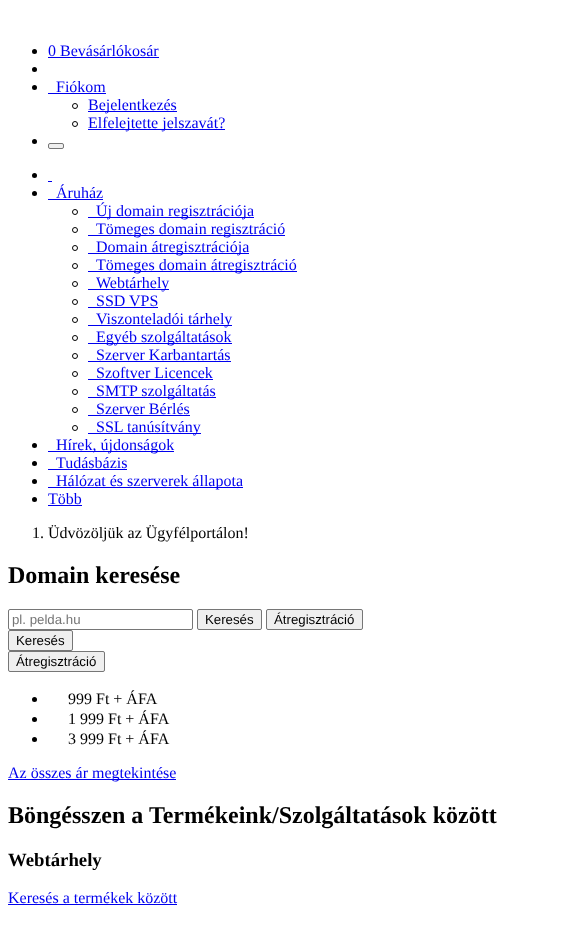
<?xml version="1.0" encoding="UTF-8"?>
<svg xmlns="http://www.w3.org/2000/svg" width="585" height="930">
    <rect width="100%" height="100%" fill="#FFFFFF"/>
    <circle cx="34.5" cy="51.5" r="2.5" fill="#000000"/>
    <text x="48" y="56" font-family="Liberation Serif" font-size="16" fill="#0000EE">0 Bevásárlókosár</text>
    <rect x="48" y="57" width="111" height="1" fill="#0000EE"/>
    <circle cx="34.5" cy="69.5" r="2.5" fill="#000000"/>
    <circle cx="34.5" cy="87.5" r="2.5" fill="#000000"/>
    <text x="56" y="92" font-family="Liberation Serif" font-size="16" fill="#0000EE">Fiókom</text>
    <rect x="48" y="93" width="58" height="1" fill="#0000EE"/>
    <circle cx="75" cy="106" r="2.5" fill="none" stroke="#000000"/>
    <rect x="88" y="111" width="89" height="1" fill="#0000EE"/>
    <text x="88" y="110" font-family="Liberation Serif" font-size="16" fill="#0000EE">Bejelentkezés</text>
    <circle cx="75" cy="124" r="2.5" fill="none" stroke="#000000"/>
    <rect x="88" y="129" width="137" height="1" fill="#0000EE"/>
    <text x="88" y="128" font-family="Liberation Serif" font-size="16" fill="#0000EE">Elfelejtette jelszavát?</text>
    <circle cx="34.5" cy="141.5" r="2.5" fill="#000000"/>
    <rect x="48.5" y="143.5" width="15" height="5" rx="1.5" fill="#EFEFEF" stroke="#767676"/>
    <circle cx="34.5" cy="175.5" r="2.5" fill="#000000"/>
    <rect x="48" y="181" width="4" height="1" fill="#0000EE"/>
    <circle cx="34.5" cy="193.5" r="2.5" fill="#000000"/>
    <text x="56" y="198" font-family="Liberation Serif" font-size="16" fill="#0000EE">Áruház</text>
    <rect x="48" y="199" width="55" height="1" fill="#0000EE"/>
    <circle cx="75" cy="212" r="2.5" fill="none" stroke="#000000"/>
    <rect x="88" y="217" width="166" height="1" fill="#0000EE"/>
    <text x="96" y="216" font-family="Liberation Serif" font-size="16" fill="#0000EE">Új domain regisztrációja</text>
    <circle cx="75" cy="230" r="2.5" fill="none" stroke="#000000"/>
    <rect x="88" y="235" width="197" height="1" fill="#0000EE"/>
    <text x="96" y="234" font-family="Liberation Serif" font-size="16" fill="#0000EE">Tömeges domain regisztráció</text>
    <circle cx="75" cy="248" r="2.5" fill="none" stroke="#000000"/>
    <rect x="88" y="253" width="161" height="1" fill="#0000EE"/>
    <text x="96" y="252" font-family="Liberation Serif" font-size="16" fill="#0000EE">Domain átregisztrációja</text>
    <circle cx="75" cy="266" r="2.5" fill="none" stroke="#000000"/>
    <rect x="88" y="271" width="209" height="1" fill="#0000EE"/>
    <text x="96" y="270" font-family="Liberation Serif" font-size="16" fill="#0000EE">Tömeges domain átregisztráció</text>
    <circle cx="75" cy="284" r="2.5" fill="none" stroke="#000000"/>
    <rect x="88" y="289" width="81" height="1" fill="#0000EE"/>
    <text x="96" y="288" font-family="Liberation Serif" font-size="16" fill="#0000EE">Webtárhely</text>
    <circle cx="75" cy="302" r="2.5" fill="none" stroke="#000000"/>
    <text x="96" y="306" font-family="Liberation Serif" font-size="16" fill="#0000EE">SSD VPS</text>
    <rect x="88" y="307" width="70" height="1" fill="#0000EE"/>
    <circle cx="75" cy="320" r="2.5" fill="none" stroke="#000000"/>
    <rect x="88" y="325" width="144" height="1" fill="#0000EE"/>
    <text x="96" y="324" font-family="Liberation Serif" font-size="16" fill="#0000EE">Viszonteladói tárhely</text>
    <circle cx="75" cy="338" r="2.5" fill="none" stroke="#000000"/>
    <rect x="88" y="343" width="144" height="1" fill="#0000EE"/>
    <text x="96" y="342" font-family="Liberation Serif" font-size="16" fill="#0000EE">Egyéb szolgáltatások</text>
    <circle cx="75" cy="356" r="2.5" fill="none" stroke="#000000"/>
    <text x="96" y="360" font-family="Liberation Serif" font-size="16" fill="#0000EE">Szerver Karbantartás</text>
    <rect x="88" y="361" width="143" height="1" fill="#0000EE"/>
    <circle cx="75" cy="374" r="2.5" fill="none" stroke="#000000"/>
    <text x="96" y="378" font-family="Liberation Serif" font-size="16" fill="#0000EE">Szoftver Licencek</text>
    <rect x="88" y="379" width="125" height="1" fill="#0000EE"/>
    <circle cx="75" cy="392" r="2.5" fill="none" stroke="#000000"/>
    <rect x="88" y="397" width="128" height="1" fill="#0000EE"/>
    <text x="96" y="396" font-family="Liberation Serif" font-size="16" fill="#0000EE">SMTP szolgáltatás</text>
    <circle cx="75" cy="410" r="2.5" fill="none" stroke="#000000"/>
    <text x="96" y="414" font-family="Liberation Serif" font-size="16" fill="#0000EE">Szerver Bérlés</text>
    <rect x="88" y="415" width="102" height="1" fill="#0000EE"/>
    <circle cx="75" cy="428" r="2.5" fill="none" stroke="#000000"/>
    <rect x="88" y="433" width="113" height="1" fill="#0000EE"/>
    <text x="96" y="432" font-family="Liberation Serif" font-size="16" fill="#0000EE">SSL tanúsítvány</text>
    <circle cx="34.5" cy="445.5" r="2.5" fill="#000000"/>
    <rect x="48" y="451" width="126" height="1" fill="#0000EE"/>
    <text x="56" y="450" font-family="Liberation Serif" font-size="16" fill="#0000EE">Hírek, újdonságok</text>
    <circle cx="34.5" cy="463.5" r="2.5" fill="#000000"/>
    <text x="56" y="468" font-family="Liberation Serif" font-size="16" fill="#0000EE">Tudásbázis</text>
    <rect x="48" y="469" width="79" height="1" fill="#0000EE"/>
    <circle cx="34.5" cy="481.5" r="2.5" fill="#000000"/>
    <rect x="48" y="487" width="195" height="1" fill="#0000EE"/>
    <text x="56" y="486" font-family="Liberation Serif" font-size="16" fill="#0000EE">Hálózat és szerverek állapota</text>
    <circle cx="34.5" cy="499.5" r="2.5" fill="#000000"/>
    <text x="48" y="504" font-family="Liberation Serif" font-size="16" fill="#0000EE">Több</text>
    <rect x="48" y="505" width="34" height="1" fill="#0000EE"/>
    <text x="32" y="538" font-family="Liberation Serif" font-size="16" fill="#000000">1. Üdvözöljük az Ügyfélportálon!</text>
    <text x="8" y="583" font-family="Liberation Serif" font-size="24" font-weight="700" fill="#000000">Domain keresése</text>
    <rect x="8.5" y="609.5" width="184" height="20" rx="1.5" fill="none" stroke="#767676"/>
    <text x="12" y="624" font-family="Liberation Sans" font-size="13.25" fill="#757575">pl. pelda.hu</text>
    <rect x="197.5" y="609.5" width="64" height="20" rx="1.5" fill="#EFEFEF" stroke="#767676"/>
    <text x="205" y="624" font-family="Liberation Sans" font-size="13.25" fill="#000000">Keresés</text>
    <rect x="266.5" y="609.5" width="96" height="20" rx="1.5" fill="#EFEFEF" stroke="#767676"/>
    <text x="274" y="624" font-family="Liberation Sans" font-size="13.25" fill="#000000">Átregisztráció</text>
    <rect x="8.5" y="630.5" width="64" height="20" rx="1.5" fill="#EFEFEF" stroke="#767676"/>
    <text x="16" y="645" font-family="Liberation Sans" font-size="13.25" fill="#000000">Keresés</text>
    <rect x="8.5" y="651.5" width="96" height="20" rx="1.5" fill="#EFEFEF" stroke="#767676"/>
    <text x="16" y="666" font-family="Liberation Sans" font-size="13.25" fill="#000000">Átregisztráció</text>
    <circle cx="34.5" cy="699.5" r="2.5" fill="#000000"/>
    <text x="68" y="704" font-family="Liberation Serif" font-size="16" fill="#000000">999 Ft + ÁFA</text>
    <circle cx="34.5" cy="719.5" r="2.5" fill="#000000"/>
    <text x="68" y="724" font-family="Liberation Serif" font-size="16" fill="#000000">1 999 Ft + ÁFA</text>
    <circle cx="34.5" cy="739.5" r="2.5" fill="#000000"/>
    <text x="68" y="744" font-family="Liberation Serif" font-size="16" fill="#000000">3 999 Ft + ÁFA</text>
    <rect x="8" y="779" width="168" height="1" fill="#0000EE"/>
    <text x="8" y="778" font-family="Liberation Serif" font-size="16" fill="#0000EE">Az összes ár megtekintése</text>
    <text x="8" y="823" font-family="Liberation Serif" font-size="24" font-weight="700" fill="#000000">Böngésszen a Termékeink/Szolgáltatások között</text>
    <text x="8" y="866" font-family="Liberation Serif" font-size="18.75" font-weight="700" fill="#000000">Webtárhely</text>
    <text x="8" y="903" font-family="Liberation Serif" font-size="16" fill="#0000EE">Keresés a termékek között</text>
    <rect x="8" y="904" width="169" height="1" fill="#0000EE"/>
</svg>
